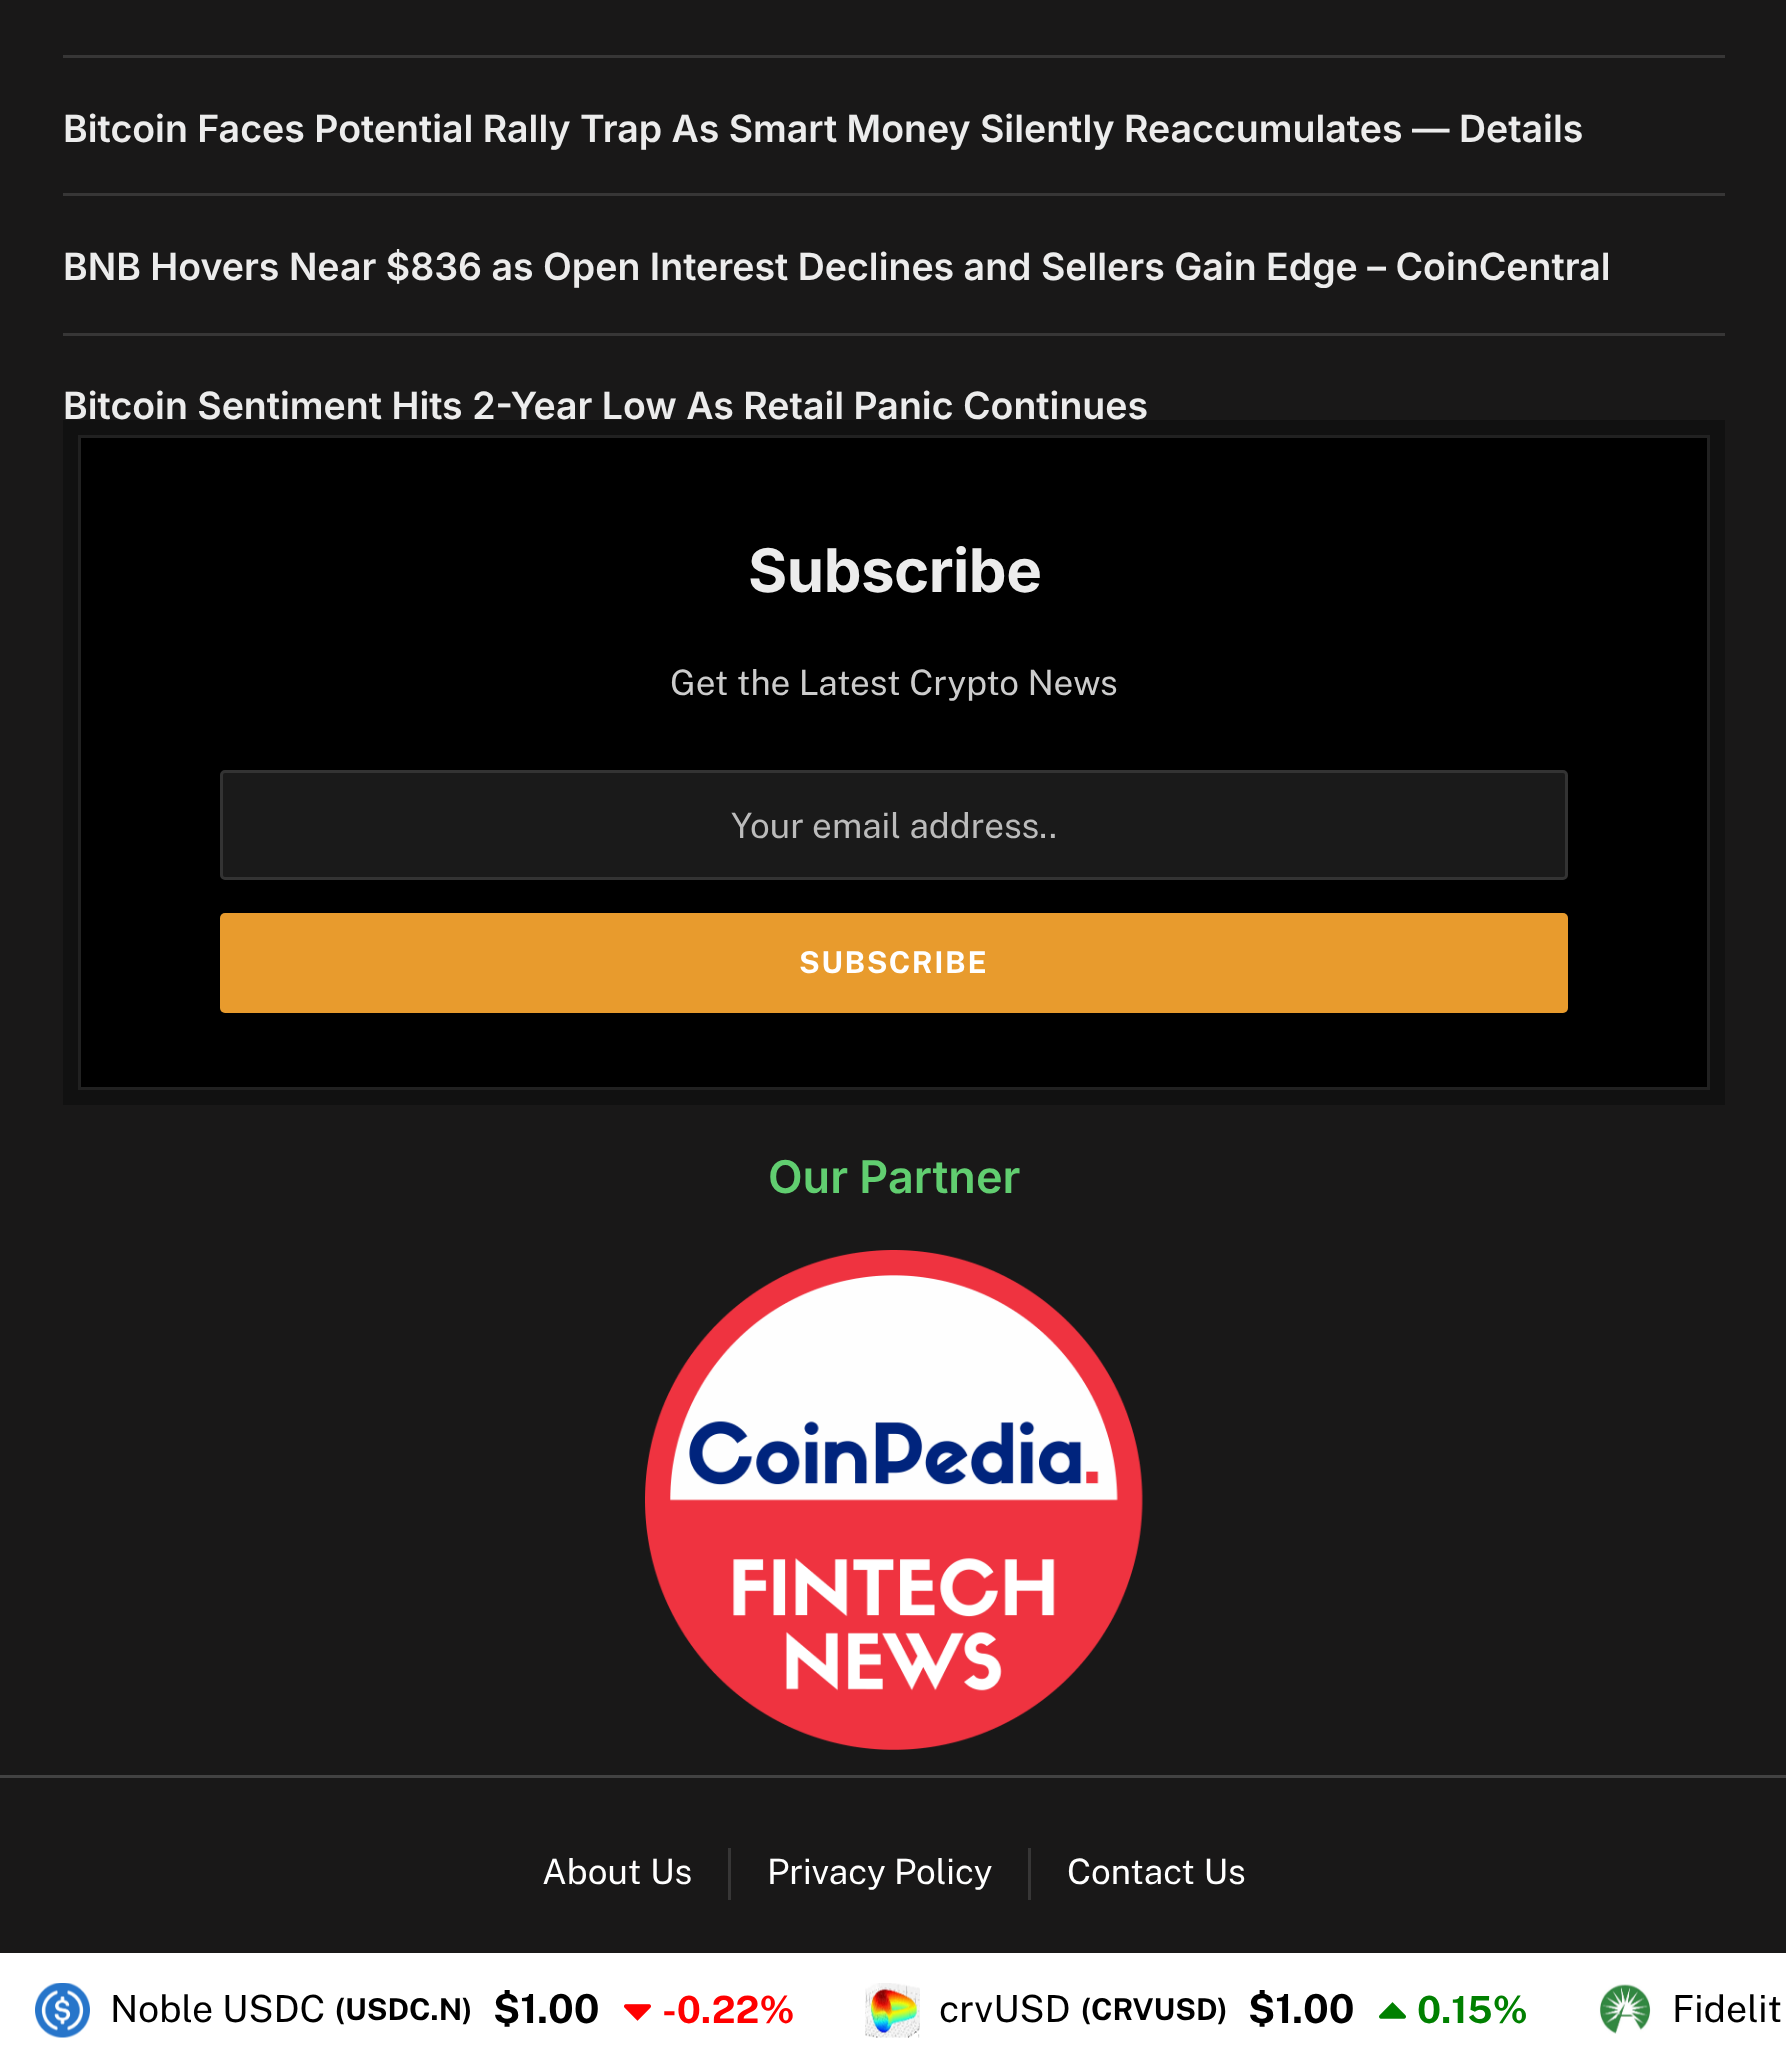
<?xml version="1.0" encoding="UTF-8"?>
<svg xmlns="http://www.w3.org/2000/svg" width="1786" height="2054">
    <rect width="100%" height="100%" fill="#191818"/>
    <rect x="63" y="55" width="1662" height="3" fill="#373636"/>
    <text x="63" y="142" font-family="Inter" font-size="37.5" font-weight="600" fill="#ECECEC">Bitcoin Faces Potential Rally Trap As Smart Money Silently Reaccumulates — Details</text>
    <rect x="63" y="193" width="1662" height="3" fill="#373636"/>
    <text x="63" y="280" font-family="Inter" font-size="37.5" font-weight="600" fill="#ECECEC">BNB Hovers Near $836 as Open Interest Declines and Sellers Gain Edge – CoinCentral</text>
    <rect x="63" y="333" width="1662" height="3" fill="#373636"/>
    <text x="63" y="419" font-family="Inter" font-size="37.5" font-weight="600" fill="#ECECEC">Bitcoin Sentiment Hits 2-Year Low As Retail Panic Continues</text>
    <rect x="81" y="438" width="1626" height="649" fill="#000000"/>
    <rect x="70.5" y="427.5" width="1647" height="670" fill="none" stroke="#111111" stroke-width="15"/>
    <rect x="79.5" y="436.5" width="1629" height="652" fill="none" stroke="#212121" stroke-width="3"/>
    <text x="748" y="592" font-family="Inter" font-size="60" font-weight="700" letter-spacing="-0.5" fill="#ECECEC">Subscribe</text>
    <text x="670" y="695" font-family="Public Sans" font-size="35" fill="#CCCCCC">Get the Latest Crypto News</text>
    <rect x="221.5" y="771.5" width="1345" height="107" rx="3.5" fill="#1A1A1A" stroke="#333333" stroke-width="3"/>
    <text x="731" y="838" font-family="Public Sans" font-size="35" fill="#BBBBBB">Your email address..</text>
    <rect x="220" y="913" width="1348" height="100" rx="5" fill="#E89B2D"/>
    <text x="799" y="973" font-family="Public Sans" font-size="30" font-weight="700" letter-spacing="1.5" fill="#FFFFFF">SUBSCRIBE</text>
    <text x="768" y="1193" font-family="Inter" font-size="45" font-weight="600" fill="#61CE70">Our Partner</text>
    <image x="645" y="1250" width="498" height="500" href="img_01.png"/>
    <rect x="0" y="1775" width="1786" height="3" fill="#424242"/>
    <text x="542" y="1884" font-family="Public Sans" font-size="35" fill="#FFFFFF">About Us</text>
    <rect x="728" y="1848" width="3" height="52" fill="#373636"/>
    <text x="767" y="1884" font-family="Public Sans" font-size="35" fill="#FFFFFF">Privacy Policy</text>
    <rect x="1028" y="1848" width="3" height="52" fill="#373636"/>
    <text x="1067" y="1884" font-family="Public Sans" font-size="35" fill="#FFFFFF">Contact Us</text>
    <rect x="0" y="1953" width="1786" height="101" fill="#FFFFFF"/>
    <image x="35" y="1983" width="55" height="55" href="img_02.png"/>
    <text x="110" y="2022" font-family="Public Sans" font-size="37.5" fill="#000000">Noble USDC</text>
    <text x="335" y="2020" font-family="Public Sans" font-size="30" font-weight="700" fill="#000000">(USDC.N)</text>
    <text x="493" y="2023" font-family="Public Sans" font-size="40" font-weight="700" fill="#000000">$1.00</text>
    <image x="624" y="2004" width="27" height="17" href="img_03.png"/>
    <text x="662" y="2023" font-family="Public Sans" font-size="37.5" font-weight="700" fill="#FF0000">-0.22%</text>
    <image x="865" y="1983" width="55" height="55" href="img_04.png"/>
    <text x="939" y="2022" font-family="Public Sans" font-size="37.5" fill="#000000">crvUSD</text>
    <text x="1081" y="2020" font-family="Public Sans" font-size="30" font-weight="700" fill="#000000">(CRVUSD)</text>
    <text x="1248" y="2023" font-family="Public Sans" font-size="40" font-weight="700" fill="#000000">$1.00</text>
    <image x="1379" y="2002" width="27" height="17" href="img_05.png"/>
    <text x="1417" y="2023" font-family="Public Sans" font-size="37.5" font-weight="700" fill="#008000">0.15%</text>
    <image x="1599" y="1984" width="52" height="50" href="img_06.png"/>
    <text x="1672" y="2022" font-family="Public Sans" font-size="37.5" fill="#000000">Fidelit</text>
</svg>
